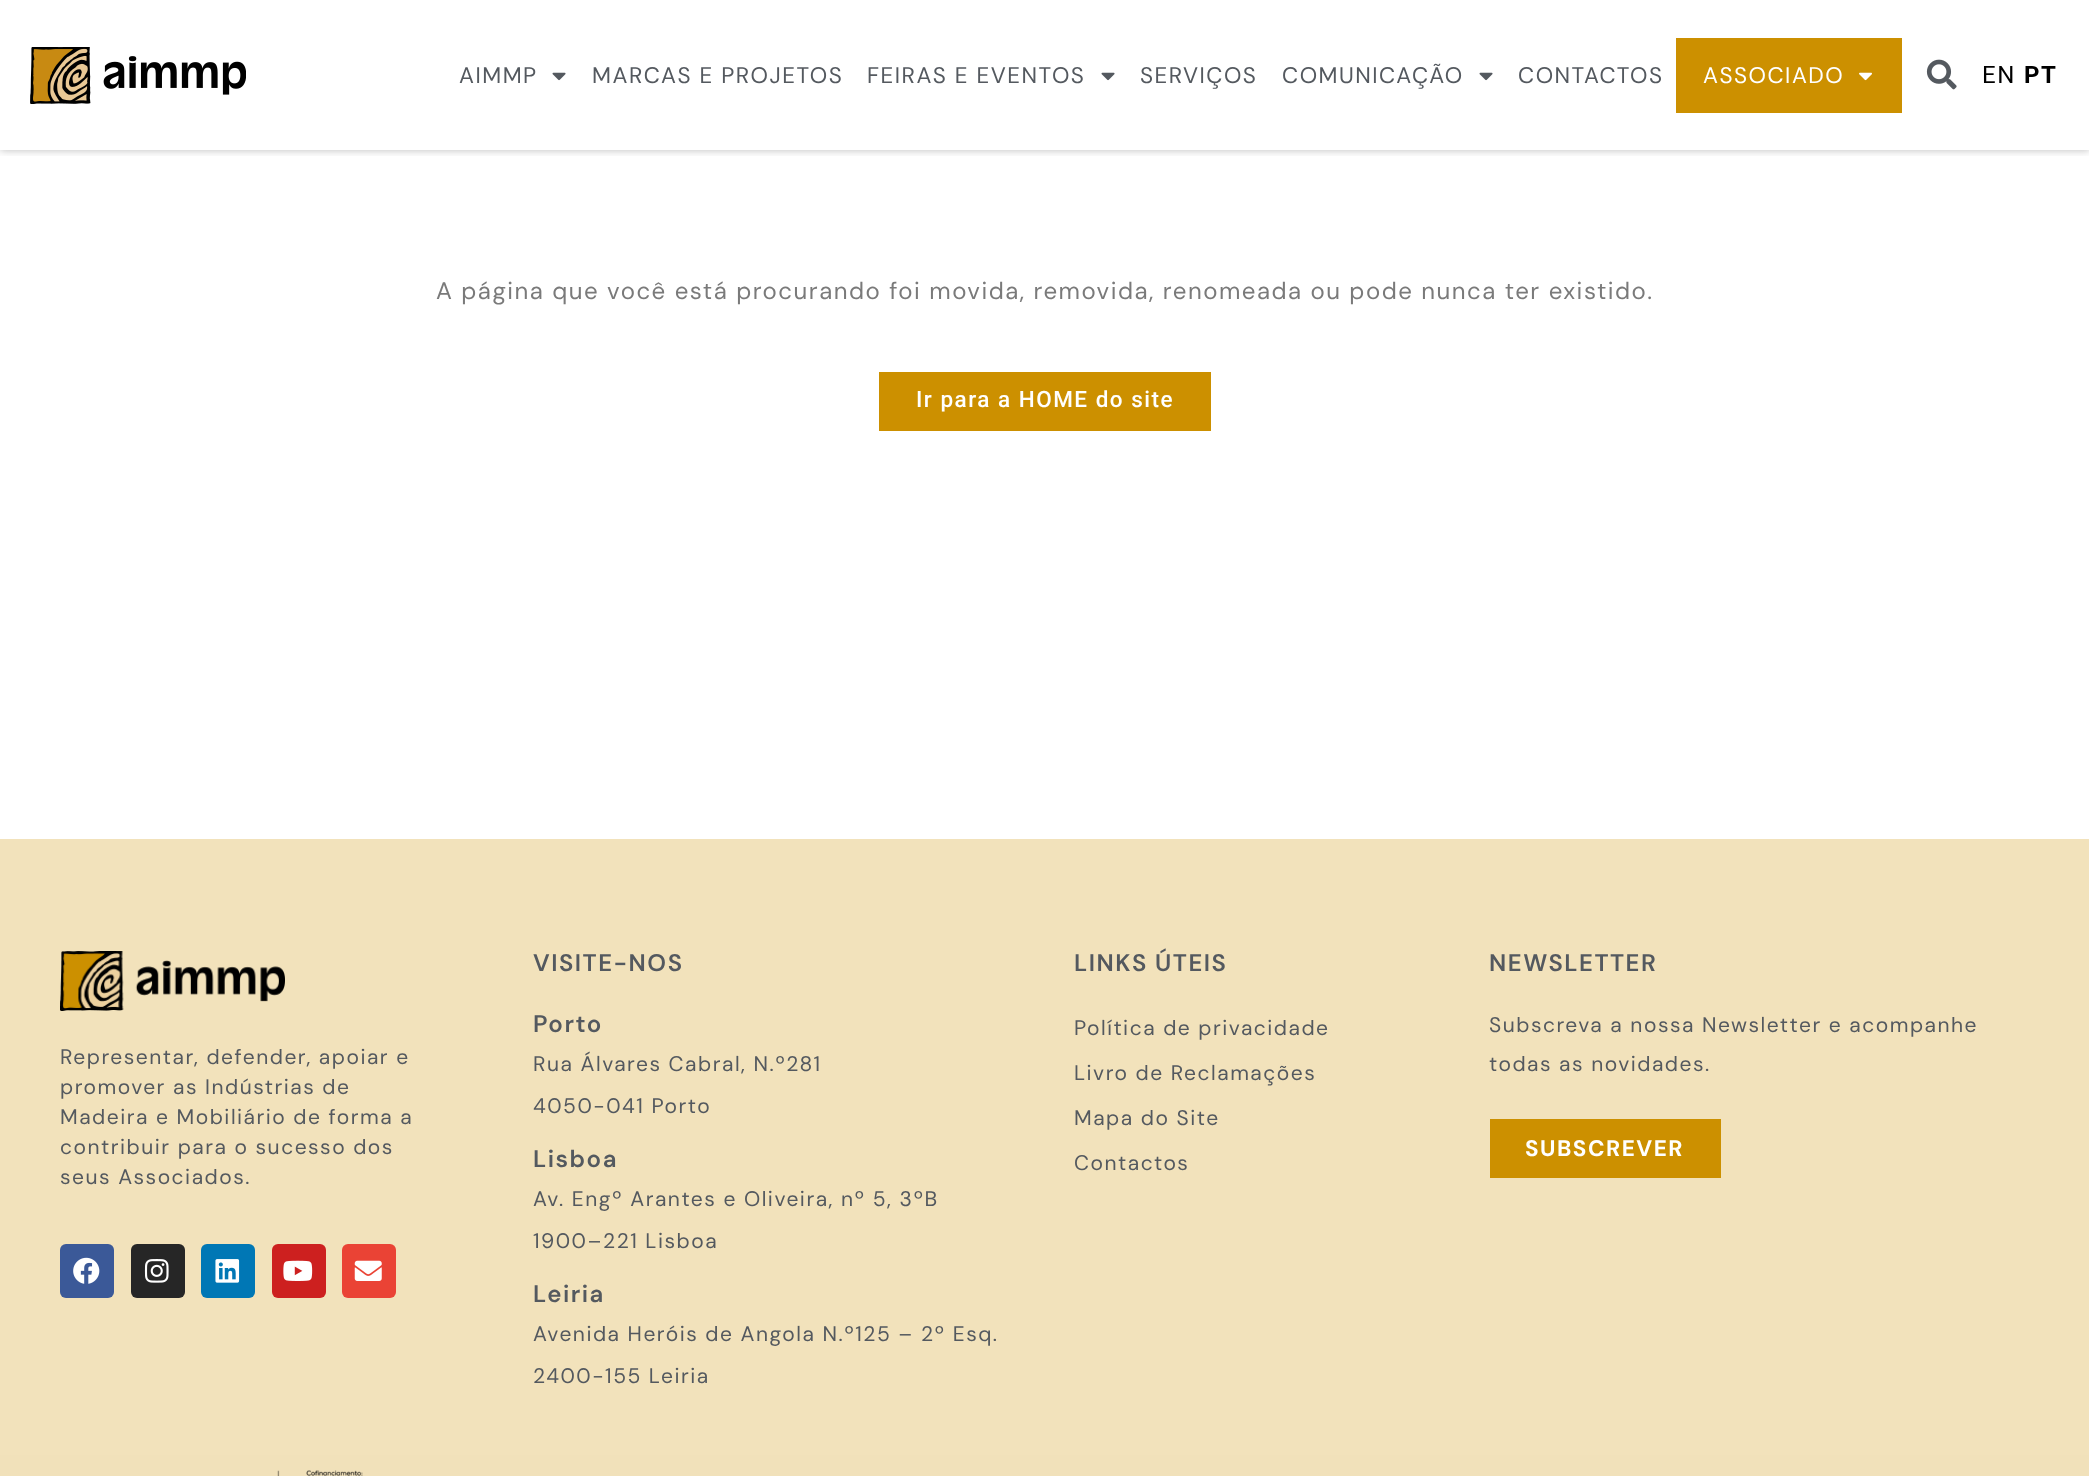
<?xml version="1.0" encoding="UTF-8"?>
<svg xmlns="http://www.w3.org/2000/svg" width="2089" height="1476">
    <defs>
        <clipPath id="clip1"><rect x="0" y="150" width="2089" height="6"/></clipPath>
        <filter id="blur1" x="-50%" y="-200%" width="200%" height="500%"><feGaussianBlur stdDeviation="4"/></filter>
    </defs>
    <rect width="100%" height="100%" fill="#FFFFFF"/>
    <g clip-path="url(#clip1)">
        <rect x="0" y="0" width="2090" height="150" fill="#000000" fill-opacity="0.27" filter="url(#blur1)"/>
    </g>
    <image x="30" y="47" width="216" height="57" href="img_01.png"/>
    <text x="459" y="83" font-family="DM Sans" font-size="22.5" letter-spacing="1.5" fill="#54595F">AIMMP</text>
    <image x="552" y="72" width="14" height="9" href="img_02.png"/>
    <text x="592" y="83" font-family="DM Sans" font-size="22.5" letter-spacing="1.5" fill="#54595F">MARCAS E PROJETOS</text>
    <text x="867" y="83" font-family="DM Sans" font-size="22.5" letter-spacing="1.5" fill="#54595F">FEIRAS E EVENTOS</text>
    <image x="1101" y="72" width="14" height="9" href="img_02.png"/>
    <text x="1140" y="83" font-family="DM Sans" font-size="22.5" letter-spacing="1.5" fill="#54595F">SERVIÇOS</text>
    <text x="1282" y="83" font-family="DM Sans" font-size="22.5" letter-spacing="1.5" fill="#54595F">COMUNICAÇÃO</text>
    <image x="1479" y="72" width="14" height="9" href="img_02.png"/>
    <text x="1518" y="83" font-family="DM Sans" font-size="22.5" letter-spacing="1.5" fill="#54595F">CONTACTOS</text>
    <rect x="1676" y="38" width="226" height="75" fill="#CC9000"/>
    <text x="1703" y="83" font-family="DM Sans" font-size="22.5" letter-spacing="1.5" fill="#FFFFFF">ASSOCIADO</text>
    <image x="1859" y="72" width="13" height="9" href="img_03.png"/>
    <image x="1926" y="59" width="31" height="31" href="img_04.png"/>
    <text x="1982" y="83" font-family="Roboto" font-size="24" letter-spacing="1.5" fill="#000000">EN</text>
    <text x="2024" y="83" font-family="Roboto" font-size="24" font-weight="700" letter-spacing="1.5" fill="#000000">PT</text>
    <text x="436" y="299" font-family="DM Sans" font-size="24" letter-spacing="1.5" fill="#7A7A7A">A página que você está procurando foi movida, removida, renomeada ou pode nunca ter existido.</text>
    <rect x="879" y="372" width="332" height="59" fill="#CC9000"/>
    <text x="916" y="407" font-family="Roboto" font-size="22.5" font-weight="500" letter-spacing="1.5" fill="#FFFFFF">Ir para a HOME do site</text>
    <rect x="0" y="839" width="2089" height="616" fill="#F2E2BB"/>
    <image x="60" y="951" width="225" height="60" href="img_05.png"/>
    <text font-family="DM Sans" font-size="21" letter-spacing="1.5" fill="#54595F">
        <tspan x="60" y="1064">Representar, defender, apoiar e</tspan>
        <tspan x="60" y="1094">promover as Indústrias de</tspan>
        <tspan x="60" y="1124">Madeira e Mobiliário de forma a</tspan>
        <tspan x="60" y="1154">contribuir para o sucesso dos</tspan>
        <tspan x="60" y="1184">seus Associados.</tspan>
    </text>
    <rect x="60" y="1244" width="54" height="54" rx="6" fill="#3B5998"/>
    <image x="73" y="1257" width="27" height="27" href="img_06.png"/>
    <rect x="131" y="1244" width="54" height="54" rx="6" fill="#262626"/>
    <image x="144" y="1259" width="25" height="24" href="img_07.png"/>
    <rect x="201" y="1244" width="54" height="54" rx="6" fill="#0077B5"/>
    <image x="215" y="1259" width="25" height="24" href="img_08.png"/>
    <rect x="272" y="1244" width="54" height="54" rx="6" fill="#CD201F"/>
    <image x="283" y="1260" width="30" height="21" href="img_09.png"/>
    <rect x="342" y="1244" width="54" height="54" rx="6" fill="#EA4335"/>
    <image x="354" y="1260" width="28" height="21" href="img_10.png"/>
    <text x="533" y="971" font-family="DM Sans" font-size="24" font-weight="600" letter-spacing="1.5" fill="#54595F">VISITE-NOS</text>
    <text x="533" y="1032" font-family="DM Sans" font-size="24" font-weight="600" letter-spacing="1.5" fill="#54595F">Porto</text>
    <text x="533" y="1071" font-family="DM Sans" font-size="21" letter-spacing="1.5" fill="#54595F">Rua Álvares Cabral, N.º281</text>
    <text x="533" y="1113" font-family="DM Sans" font-size="21" letter-spacing="1.5" fill="#54595F">4050-041 Porto</text>
    <text x="533" y="1167" font-family="DM Sans" font-size="24" font-weight="600" letter-spacing="1.5" fill="#54595F">Lisboa</text>
    <text x="533" y="1206" font-family="DM Sans" font-size="21" letter-spacing="1.5" fill="#54595F">Av. Engº Arantes e Oliveira, nº 5, 3ºB</text>
    <text x="533" y="1248" font-family="DM Sans" font-size="21" letter-spacing="1.5" fill="#54595F">1900–221 Lisboa</text>
    <text x="533" y="1302" font-family="DM Sans" font-size="24" font-weight="600" letter-spacing="1.5" fill="#54595F">Leiria</text>
    <text x="533" y="1341" font-family="DM Sans" font-size="21" letter-spacing="1.5" fill="#54595F">Avenida Heróis de Angola N.º125 – 2º Esq.</text>
    <text x="533" y="1383" font-family="DM Sans" font-size="21" letter-spacing="1.5" fill="#54595F">2400-155 Leiria</text>
    <text x="1074" y="971" font-family="DM Sans" font-size="24" font-weight="600" letter-spacing="1.5" fill="#54595F">LINKS ÚTEIS</text>
    <text x="1074" y="1035" font-family="DM Sans" font-size="21" letter-spacing="1.5" fill="#54595F">Política de privacidade</text>
    <text x="1074" y="1080" font-family="DM Sans" font-size="21" letter-spacing="1.5" fill="#54595F">Livro de Reclamações</text>
    <text x="1074" y="1125" font-family="DM Sans" font-size="21" letter-spacing="1.5" fill="#54595F">Mapa do Site</text>
    <text x="1074" y="1170" font-family="DM Sans" font-size="21" letter-spacing="1.5" fill="#54595F">Contactos</text>
    <text x="1489" y="971" font-family="DM Sans" font-size="24" font-weight="600" letter-spacing="1.5" fill="#54595F">NEWSLETTER</text>
    <text font-family="DM Sans" font-size="21" letter-spacing="1.5" fill="#54595F">
        <tspan x="1489" y="1032">Subscreva a nossa Newsletter e acompanhe</tspan>
        <tspan x="1489" y="1071">todas as novidades.</tspan>
    </text>
    <rect x="1490" y="1119" width="231" height="59" fill="#CC9000"/>
    <text x="1525" y="1156" font-family="DM Sans" font-size="22.5" font-weight="700" letter-spacing="1.5" fill="#FFFFFF">SUBSCREVER</text>
    <rect x="0" y="1455" width="2089" height="21" fill="#F1E1BA"/>
    <image x="277" y="1470" width="86" height="6" href="img_11.png"/>
</svg>
